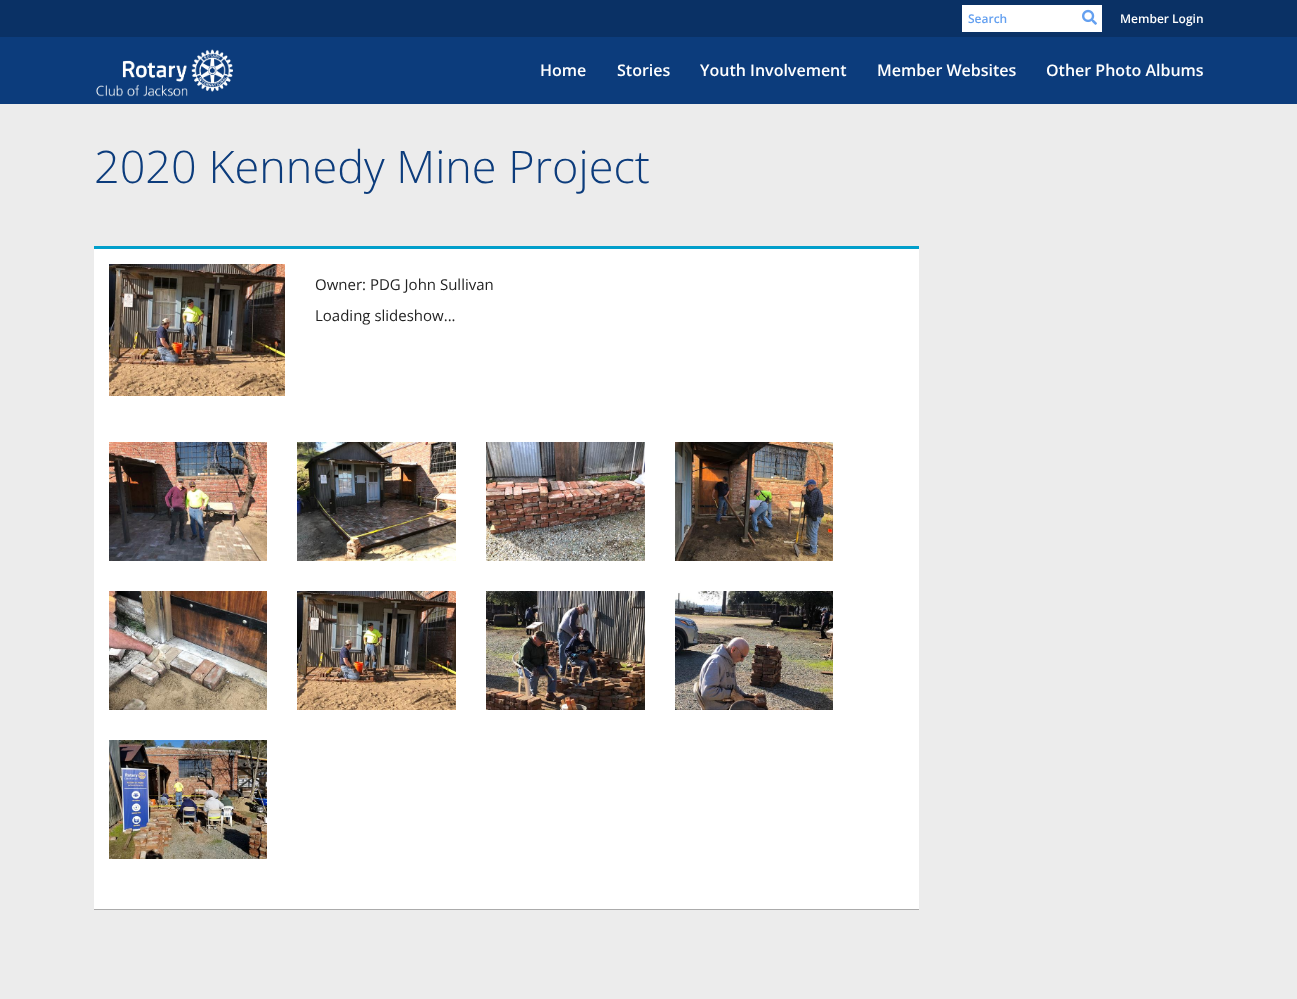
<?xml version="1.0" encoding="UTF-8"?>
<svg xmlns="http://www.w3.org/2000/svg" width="1297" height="999">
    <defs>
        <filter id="blur1" x="-50%" y="-200%" width="200%" height="500%"><feGaussianBlur stdDeviation="0.5"/></filter>
        <clipPath id="clip1"><rect x="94" y="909" width="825" height="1"/></clipPath>
    </defs>
    <rect width="100%" height="100%" fill="#ECECEC"/>
    <rect x="0" y="0" width="1297" height="37" fill="#0A3165"/>
    <rect x="962" y="5" width="140" height="27" fill="#FFFFFF"/>
    <text x="968" y="23" font-family="Open Sans" font-size="12" font-weight="600" fill="#64A0F0">Search</text>
    <image x="1082" y="9" width="15" height="16" href="img_01.png"/>
    <text x="1120" y="23" font-family="Open Sans" font-size="12" font-weight="600" fill="#FFFFFF">Member Login</text>
    <rect x="0" y="37" width="1297" height="67" fill="#0C3C7C"/>
    <image x="96" y="49" width="137" height="48" href="img_02.png"/>
    <text x="540" y="76" font-family="Open Sans" font-size="16" font-weight="600" fill="#FFFFFF">Home</text>
    <text x="617" y="76" font-family="Open Sans" font-size="16" font-weight="600" fill="#FFFFFF">Stories</text>
    <text x="700" y="76" font-family="Open Sans" font-size="16" font-weight="600" fill="#FFFFFF">Youth Involvement</text>
    <text x="877" y="76" font-family="Open Sans" font-size="16" font-weight="600" fill="#FFFFFF">Member Websites</text>
    <text x="1046" y="76" font-family="Open Sans" font-size="16" font-weight="600" fill="#FFFFFF">Other Photo Albums</text>
    <text x="94" y="183" font-family="Open Sans" font-size="45" font-weight="300" fill="#0C3C7C">2020 Kennedy Mine Project</text>
    <rect x="94" y="247" width="825" height="663" fill="#000000" fill-opacity="0.15" filter="url(#blur1)"/>
    <rect x="94" y="249" width="825" height="660" fill="#FFFFFF"/>
    <g clip-path="url(#clip1)">
        <rect x="94" y="247" width="825" height="663" fill="#000000" fill-opacity="0.15" filter="url(#blur1)"/>
    </g>
    <rect x="94" y="246" width="825" height="3" fill="#019FCB"/>
    <image x="109" y="264" width="176" height="132" href="img_03.png"/>
    <text x="315" y="290" font-family="Open Sans" font-size="15" fill="#222222">Owner: PDG John Sullivan</text>
    <text x="315" y="321" font-family="Open Sans" font-size="15" fill="#222222">Loading slideshow...</text>
    <image x="109" y="442" width="158" height="119" href="img_04.png"/>
    <image x="297" y="442" width="159" height="119" href="img_05.png"/>
    <image x="486" y="442" width="159" height="119" href="img_06.png"/>
    <image x="675" y="442" width="158" height="119" href="img_07.png"/>
    <image x="109" y="591" width="158" height="119" href="img_08.png"/>
    <image x="297" y="591" width="159" height="119" href="img_09.png"/>
    <image x="486" y="591" width="159" height="119" href="img_10.png"/>
    <image x="675" y="591" width="158" height="119" href="img_11.png"/>
    <image x="109" y="740" width="158" height="119" href="img_12.png"/>
</svg>
